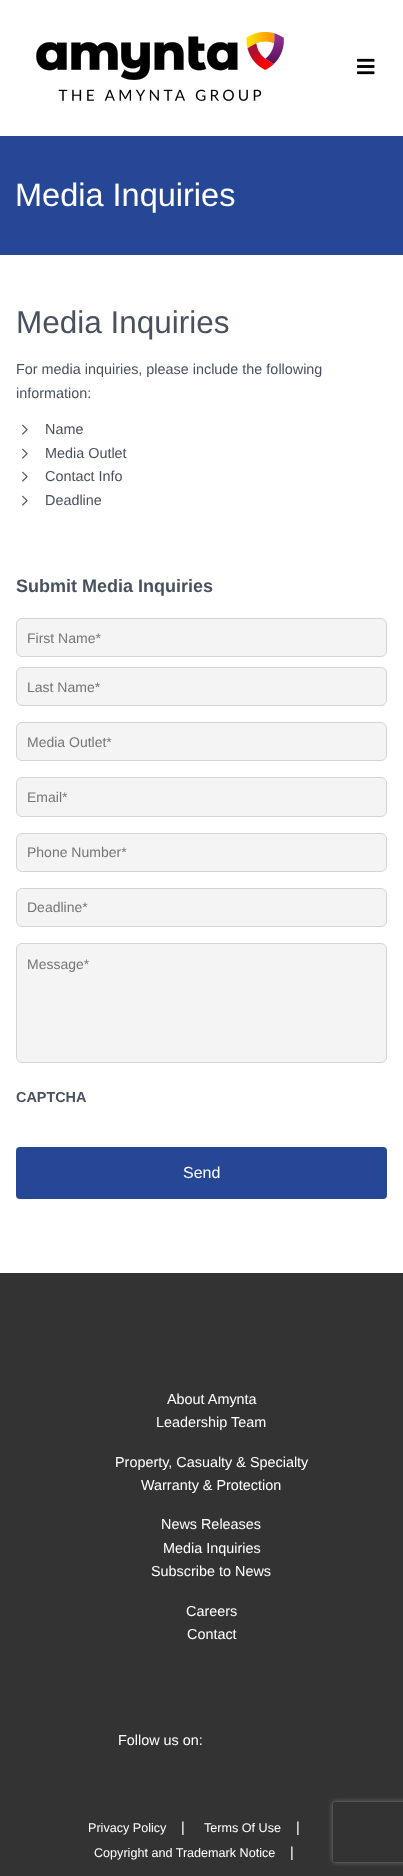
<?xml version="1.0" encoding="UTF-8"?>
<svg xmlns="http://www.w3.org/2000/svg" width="403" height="1876">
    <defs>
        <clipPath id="clip1"><path d="M 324 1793 H 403 V 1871 H 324 Z M 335 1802 H 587 C 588 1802 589 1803 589 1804 V 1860 C 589 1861 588 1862 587 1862 H 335 C 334 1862 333 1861 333 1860 V 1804 C 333 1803 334 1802 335 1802 Z" clip-rule="evenodd"/></clipPath>
        <filter id="blur1" x="-50%" y="-200%" width="200%" height="500%"><feGaussianBlur stdDeviation="2.5"/></filter>
    </defs>
    <rect width="100%" height="100%" fill="#FFFFFF"/>
    <image x="36" y="31" width="248" height="70" href="img_01.png"/>
    <image x="357" y="58" width="18" height="17" href="img_02.png"/>
    <rect x="0" y="136" width="403" height="119" fill="#254795"/>
    <text x="15" y="206" font-family="Liberation Sans" font-size="32.5" fill="#FFFFFF">Media Inquiries</text>
    <text x="16" y="333" font-family="Liberation Sans" font-size="31.5" fill="#48515D">Media Inquiries</text>
    <text font-family="Liberation Sans" font-size="14.4" fill="#48515D">
        <tspan x="16" y="374">For media inquiries, please include the following</tspan>
        <tspan x="16" y="398">information:</tspan>
    </text>
    <image x="22" y="424" width="6" height="11" href="img_03.png"/>
    <text x="45" y="434" font-family="Liberation Sans" font-size="14.4" fill="#48515D">Name</text>
    <image x="22" y="448" width="6" height="11" href="img_03.png"/>
    <text x="45" y="458" font-family="Liberation Sans" font-size="14.4" fill="#48515D">Media Outlet</text>
    <image x="22" y="471" width="6" height="11" href="img_03.png"/>
    <text x="45" y="481" font-family="Liberation Sans" font-size="14.4" fill="#48515D">Contact Info</text>
    <image x="22" y="495" width="6" height="11" href="img_03.png"/>
    <text x="45" y="505" font-family="Liberation Sans" font-size="14.4" fill="#48515D">Deadline</text>
    <text x="16" y="592" font-family="Liberation Sans" font-size="18" font-weight="700" fill="#48515D">Submit Media Inquiries</text>
    <rect x="16.5" y="618.5" width="370" height="38" rx="5.5" fill="#F4F4F4" stroke="#D4D4D4"/>
    <text x="27" y="643" font-family="Liberation Sans" font-size="14" fill="#757575">First Name*</text>
    <rect x="16.5" y="667.5" width="370" height="38" rx="5.5" fill="#F4F4F4" stroke="#D4D4D4"/>
    <text x="27" y="692" font-family="Liberation Sans" font-size="14" fill="#757575">Last Name*</text>
    <rect x="16.5" y="722.5" width="370" height="38" rx="5.5" fill="#F4F4F4" stroke="#D4D4D4"/>
    <text x="27" y="747" font-family="Liberation Sans" font-size="14" fill="#757575">Media Outlet*</text>
    <rect x="16.5" y="777.5" width="370" height="39" rx="5.5" fill="#F4F4F4" stroke="#D4D4D4"/>
    <text x="27" y="802" font-family="Liberation Sans" font-size="14" fill="#757575">Email*</text>
    <rect x="16.5" y="833.5" width="370" height="38" rx="5.5" fill="#F4F4F4" stroke="#D4D4D4"/>
    <text x="27" y="857" font-family="Liberation Sans" font-size="14" fill="#757575">Phone Number*</text>
    <rect x="16.5" y="888.5" width="370" height="38" rx="5.5" fill="#F4F4F4" stroke="#D4D4D4"/>
    <text x="27" y="912" font-family="Liberation Sans" font-size="14" fill="#757575">Deadline*</text>
    <rect x="16.5" y="943.5" width="370" height="119" rx="5.5" fill="#F4F4F4" stroke="#D4D4D4"/>
    <text x="27" y="969" font-family="Liberation Sans" font-size="14" fill="#757575">Message*</text>
    <text x="16" y="1102" font-family="Liberation Sans" font-size="14.4" font-weight="700" fill="#48515D">CAPTCHA</text>
    <rect x="0" y="1273" width="403" height="603" fill="#333333"/>
    <g clip-path="url(#clip1)">
        <rect x="333" y="1802" width="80" height="60" rx="2" fill="#808080" filter="url(#blur1)"/>
    </g>
    <rect x="16" y="1147" width="371" height="52" rx="4" fill="#254795"/>
    <text x="183" y="1178" font-family="Liberation Sans" font-size="16" fill="#FFFFFF">Send</text>
    <text x="167" y="1404" font-family="Liberation Sans" font-size="14.4" fill="#FFFFFF">About Amynta</text>
    <text x="156" y="1427" font-family="Liberation Sans" font-size="14.4" fill="#FFFFFF">Leadership Team</text>
    <text x="115" y="1467" font-family="Liberation Sans" font-size="14.4" fill="#FFFFFF">Property, Casualty &amp; Specialty</text>
    <text x="141" y="1490" font-family="Liberation Sans" font-size="14.4" fill="#FFFFFF">Warranty &amp; Protection</text>
    <text x="161" y="1529" font-family="Liberation Sans" font-size="14.4" fill="#FFFFFF">News Releases</text>
    <text x="163" y="1553" font-family="Liberation Sans" font-size="14.4" fill="#FFFFFF">Media Inquiries</text>
    <text x="151" y="1576" font-family="Liberation Sans" font-size="14.4" fill="#FFFFFF">Subscribe to News</text>
    <text x="186" y="1616" font-family="Liberation Sans" font-size="14.4" fill="#FFFFFF">Careers</text>
    <text x="187" y="1639" font-family="Liberation Sans" font-size="14.4" fill="#FFFFFF">Contact</text>
    <text x="118" y="1745" font-family="Liberation Sans" font-size="14.4" fill="#FFFFFF">Follow us on:</text>
    <text x="88" y="1832" font-family="Liberation Sans" font-size="12.6" fill="#FFFFFF">Privacy Policy</text>
    <text x="181" y="1832" font-family="Liberation Sans" font-size="14.4" fill="#FFFFFF">|</text>
    <text x="204" y="1832" font-family="Liberation Sans" font-size="12.6" fill="#FFFFFF">Terms Of Use</text>
    <text x="296" y="1832" font-family="Liberation Sans" font-size="14.4" fill="#FFFFFF">|</text>
    <text x="94" y="1857" font-family="Liberation Sans" font-size="12.6" fill="#FFFFFF">Copyright and Trademark Notice</text>
    <text x="290" y="1857" font-family="Liberation Sans" font-size="14.4" fill="#FFFFFF">|</text>
</svg>
